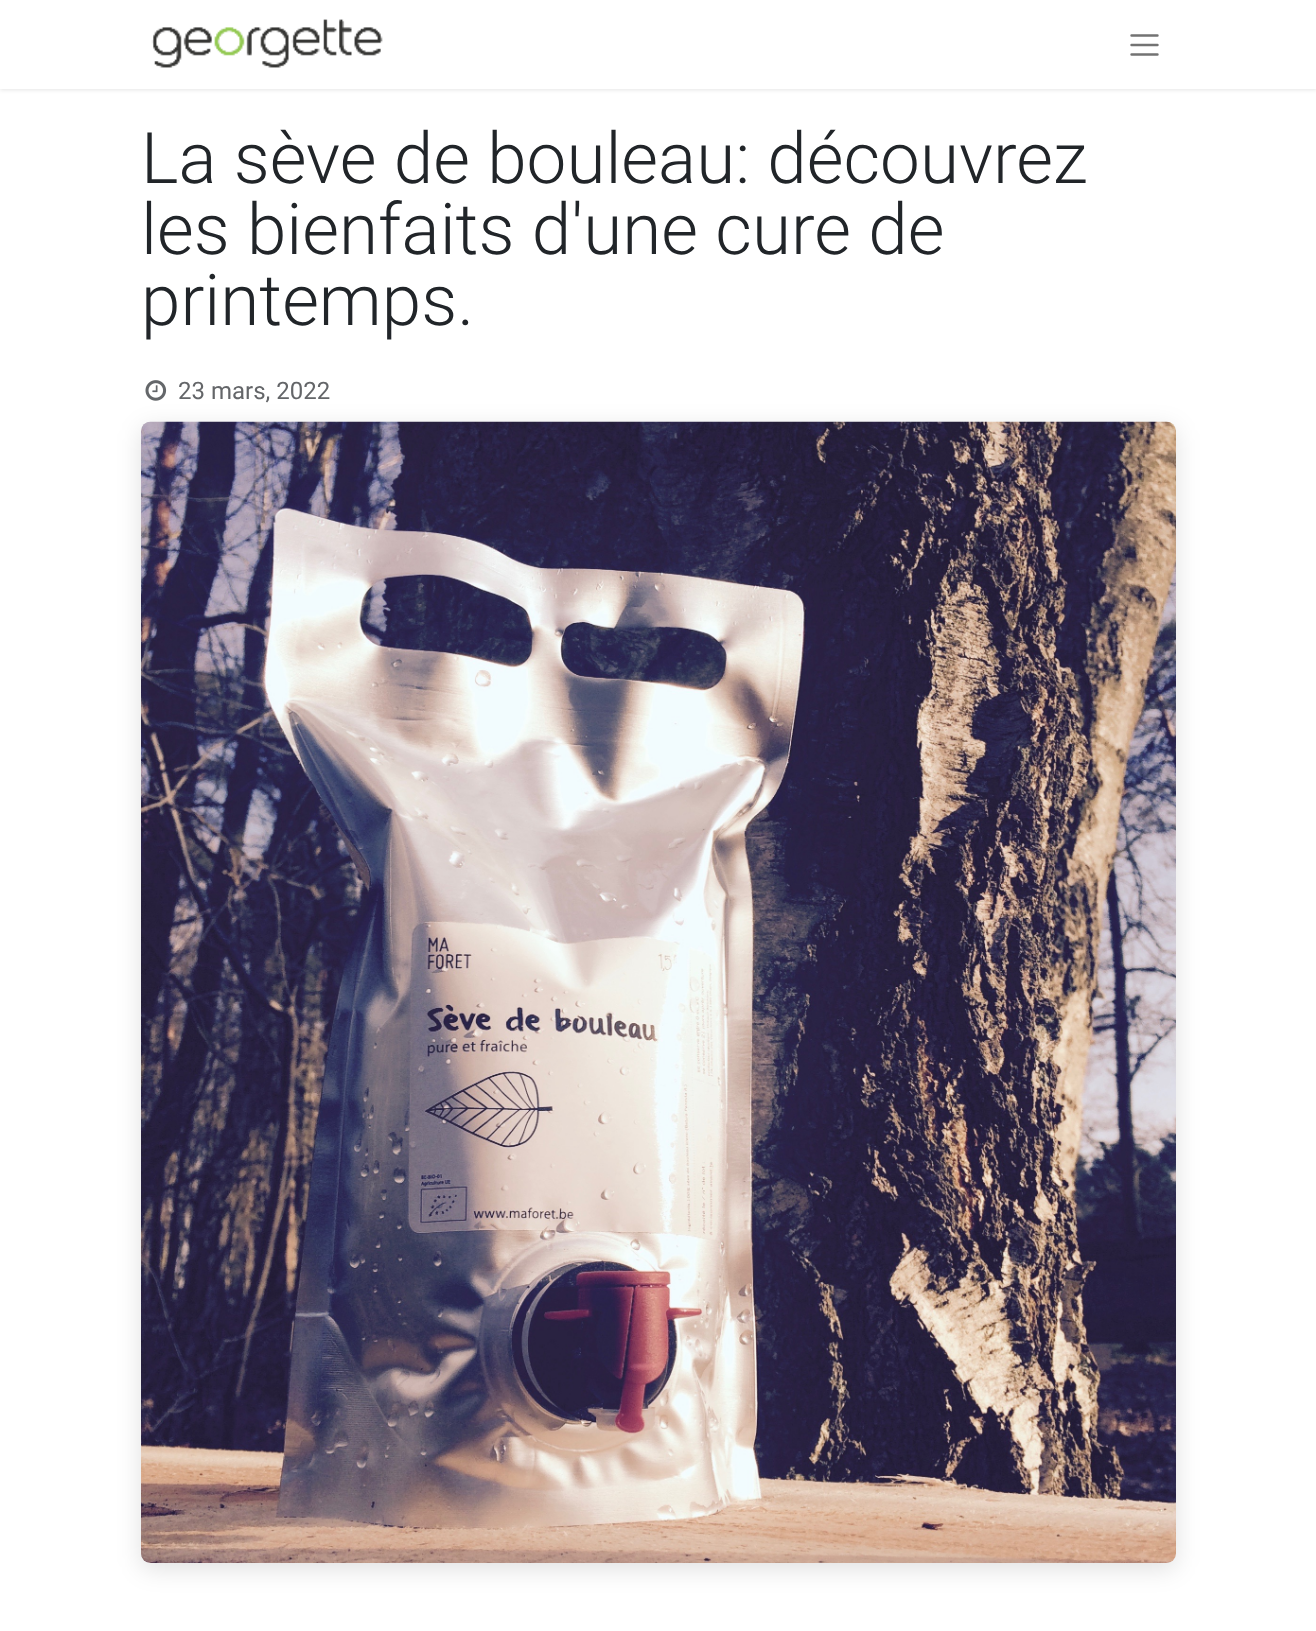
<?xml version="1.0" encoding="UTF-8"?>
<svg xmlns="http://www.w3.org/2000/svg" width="1316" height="1631">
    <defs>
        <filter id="blur1" x="-50%" y="-200%" width="200%" height="500%"><feGaussianBlur stdDeviation="2"/></filter>
        <filter id="blur2" x="-50%" y="-200%" width="200%" height="500%"><feGaussianBlur stdDeviation="12"/></filter>
    </defs>
    <rect width="100%" height="100%" fill="#FFFFFF"/>
    <rect x="0" y="2" width="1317" height="88" fill="#000000" fill-opacity="0.1" filter="url(#blur1)"/>
    <rect x="0" y="0" width="1316" height="89" fill="#FFFFFF"/>
    <image x="151" y="19" width="232" height="49" href="img_01.png"/>
    <path d="M 1131.5 35.5 H 1157.5 M 1131.5 45 H 1157.5 M 1131.5 54.5 H 1157.5" fill="none" stroke="#737373" stroke-width="2.4" stroke-linecap="round"/>
    <text font-family="Roboto" font-size="71" font-weight="300" fill="#212529">
        <tspan x="141" y="183">La sève de bouleau: découvrez</tspan>
        <tspan x="141" y="254">les bienfaits d'une cure de</tspan>
        <tspan x="141" y="325">printemps.</tspan>
    </text>
    <image x="145" y="380" width="22" height="21" href="img_02.png"/>
    <text x="178" y="399" font-family="Roboto" font-size="24" fill="#646669">23 mars, 2022</text>
    <rect x="141" y="428" width="1035" height="1141" rx="9" fill="#000000" fill-opacity="0.12" filter="url(#blur2)"/>
    <image x="141" y="421" width="1035" height="1142" href="img_03.png"/>
</svg>
